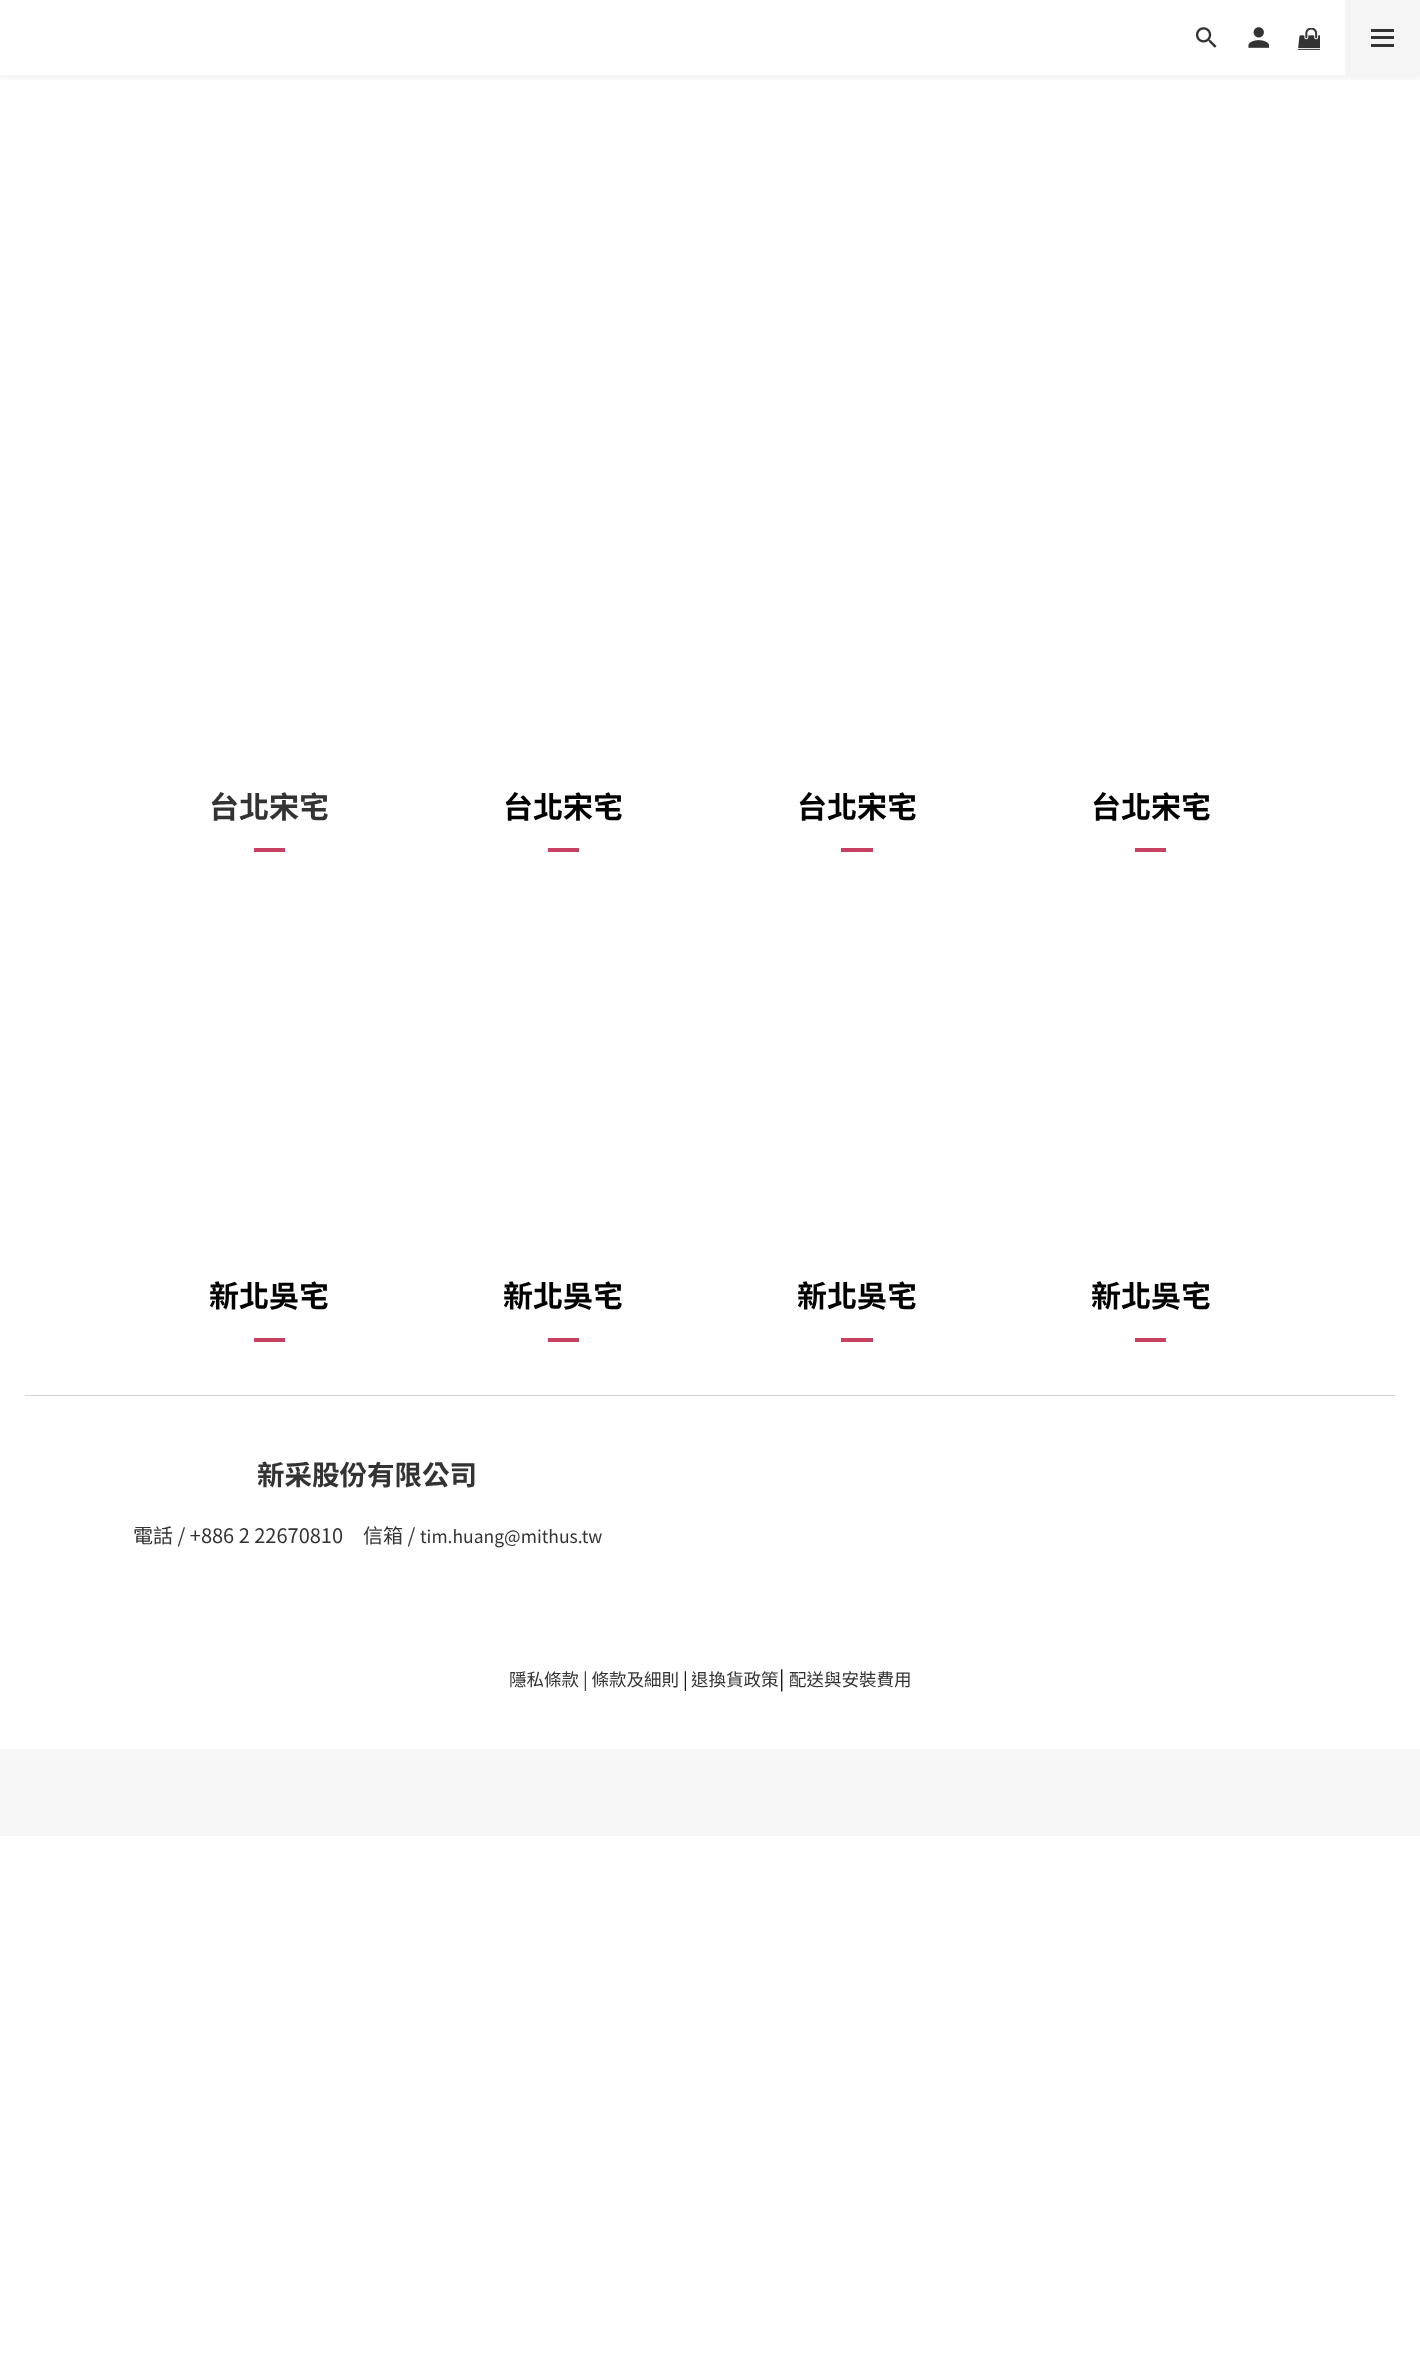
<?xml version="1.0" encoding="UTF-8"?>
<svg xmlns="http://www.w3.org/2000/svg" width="1420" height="2371">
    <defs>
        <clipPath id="clip1"><rect x="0" y="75" width="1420" height="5"/></clipPath>
        <filter id="blur1" x="-50%" y="-200%" width="200%" height="500%"><feGaussianBlur stdDeviation="4"/></filter>
    </defs>
    <rect width="100%" height="100%" fill="#FFFFFF"/>
    <g clip-path="url(#clip1)">
        <rect x="0" y="3" width="1420" height="75" fill="#000000" fill-opacity="0.06" filter="url(#blur1)"/>
    </g>
    <image x="1195" y="27" width="22" height="21" href="img_01.png"/>
    <image x="1248" y="27" width="22" height="21" href="img_02.png"/>
    <image x="1298" y="28" width="22" height="22" href="img_03.png"/>
    <rect x="1345" y="0" width="75" height="75" fill="#F5F5F5"/>
    <rect x="1371" y="36" width="23" height="3" fill="#333333"/>
    <rect x="1371" y="29" width="23" height="3" fill="#333333"/>
    <rect x="1371" y="44" width="23" height="3" fill="#333333"/>
    <text x="209" y="818" font-family="Noto Sans TC" font-size="30" font-weight="700" fill="#333333">台北宋宅</text>
    <rect x="254" y="848" width="31" height="4" fill="#C74060"/>
    <text x="503" y="818" font-family="Noto Sans TC" font-size="30" font-weight="700" fill="#000000">台北宋宅</text>
    <rect x="548" y="848" width="31" height="4" fill="#C74060"/>
    <text x="797" y="818" font-family="Noto Sans TC" font-size="30" font-weight="700" fill="#000000">台北宋宅</text>
    <rect x="841" y="848" width="32" height="4" fill="#C74060"/>
    <text x="1091" y="818" font-family="Noto Sans TC" font-size="30" font-weight="700" fill="#000000">台北宋宅</text>
    <rect x="1135" y="848" width="31" height="4" fill="#C74060"/>
    <text x="209" y="1307" font-family="Noto Sans TC" font-size="30" font-weight="700" fill="#000000">新北吳宅</text>
    <rect x="254" y="1338" width="31" height="4" fill="#C74060"/>
    <text x="503" y="1307" font-family="Noto Sans TC" font-size="30" font-weight="700" fill="#000000">新北吳宅</text>
    <rect x="548" y="1338" width="31" height="4" fill="#C74060"/>
    <text x="797" y="1307" font-family="Noto Sans TC" font-size="30" font-weight="700" fill="#000000">新北吳宅</text>
    <rect x="841" y="1338" width="32" height="4" fill="#C74060"/>
    <text x="1091" y="1307" font-family="Noto Sans TC" font-size="30" font-weight="700" fill="#000000">新北吳宅</text>
    <rect x="1135" y="1338" width="31" height="4" fill="#C74060"/>
    <rect x="25" y="1395" width="1370" height="1" fill="#D6D6D6"/>
    <text x="257" y="1485" font-family="Noto Sans TC" font-size="27.5" font-weight="700" fill="#333333">新采股份有限公司</text>
    <text x="133" y="1543" font-family="Noto Sans TC" font-size="20" fill="#333333">電話 / +886 2 22670810　信箱 /</text>
    <text x="420" y="1543" font-family="Noto Sans TC" font-size="17.5" fill="#333333">tim.huang@mithus.tw</text>
    <text x="509" y="1686" font-family="Noto Sans TC" font-size="17.5" fill="#333333">隱私條款 | 條款及細則</text>
    <text x="683" y="1686" font-family="Noto Sans TC" font-size="17.5" fill="#000000">|</text>
    <text x="691" y="1686" font-family="Noto Sans TC" font-size="17.5" fill="#333333">退換貨政策</text>
    <text x="779" y="1686" font-family="Noto Sans TC" font-size="20" fill="#000000">|</text>
    <text x="789" y="1686" font-family="Noto Sans TC" font-size="17.5" fill="#333333">配送與安裝費用</text>
    <rect x="0" y="1749" width="1420" height="87" fill="#F7F7F7"/>
</svg>
